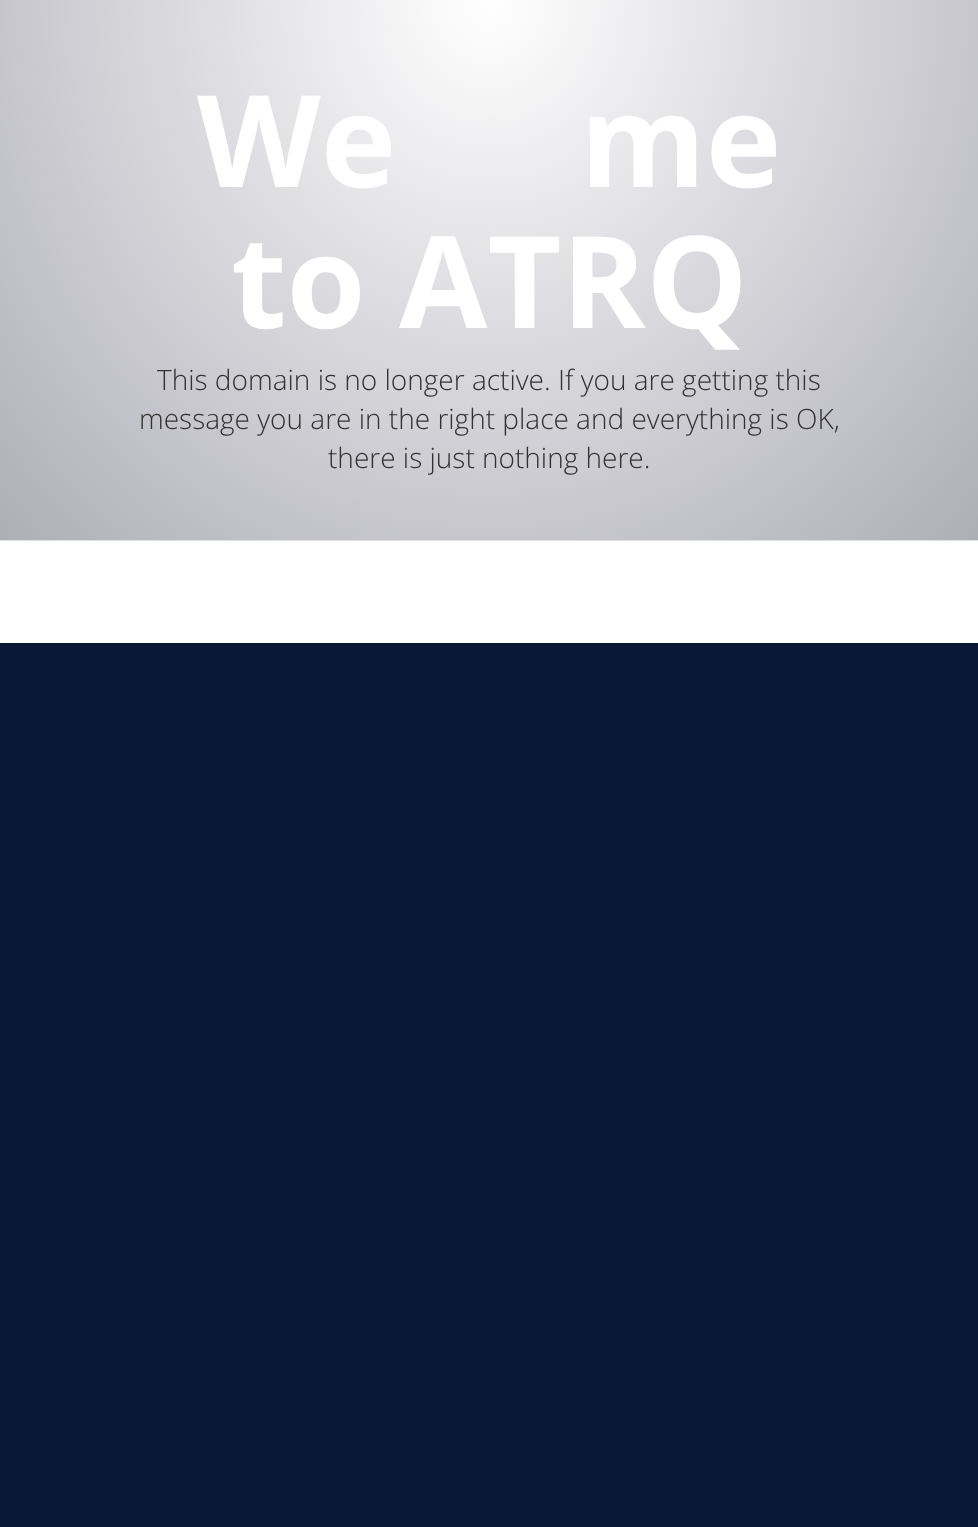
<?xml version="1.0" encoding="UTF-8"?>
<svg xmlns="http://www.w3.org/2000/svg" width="978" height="1527">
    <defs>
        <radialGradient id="g1" gradientUnits="userSpaceOnUse" cx="0" cy="0" r="1" gradientTransform="matrix(692 0 0 764 489 0)"><stop offset="0" stop-color="#FFFFFF"/><stop offset="1" stop-color="#AEAEB7"/></radialGradient>
    </defs>
    <rect width="100%" height="100%" fill="#0A1837"/>
    <rect x="0" y="0" width="978" height="540" fill="url(#g1)"/>
    <text x="197" y="187" font-family="Open Sans" font-size="128" font-weight="700" fill="#FFFFFF">We</text>
    <text x="580" y="187" font-family="Open Sans" font-size="128" font-weight="700" fill="#FFFFFF">me</text>
    <text x="231" y="328" font-family="Open Sans" font-size="128" font-weight="700" fill="#FFFFFF">to ATRQ</text>
    <text x="157" y="390" font-family="Open Sans" font-size="28" font-weight="300" fill="#333333">This domain is no longer active. If you are getting this</text>
    <text x="139" y="429" font-family="Open Sans" font-size="28" font-weight="300" fill="#333333">message you are in the right place and everything is OK,</text>
    <text x="328" y="468" font-family="Open Sans" font-size="28" font-weight="300" fill="#333333">there is just nothing here.</text>
    <rect x="0" y="541" width="978" height="102" fill="#FFFFFF"/>
    <rect x="0" y="540" width="978" height="1" fill="#E0E0E0"/>
</svg>
